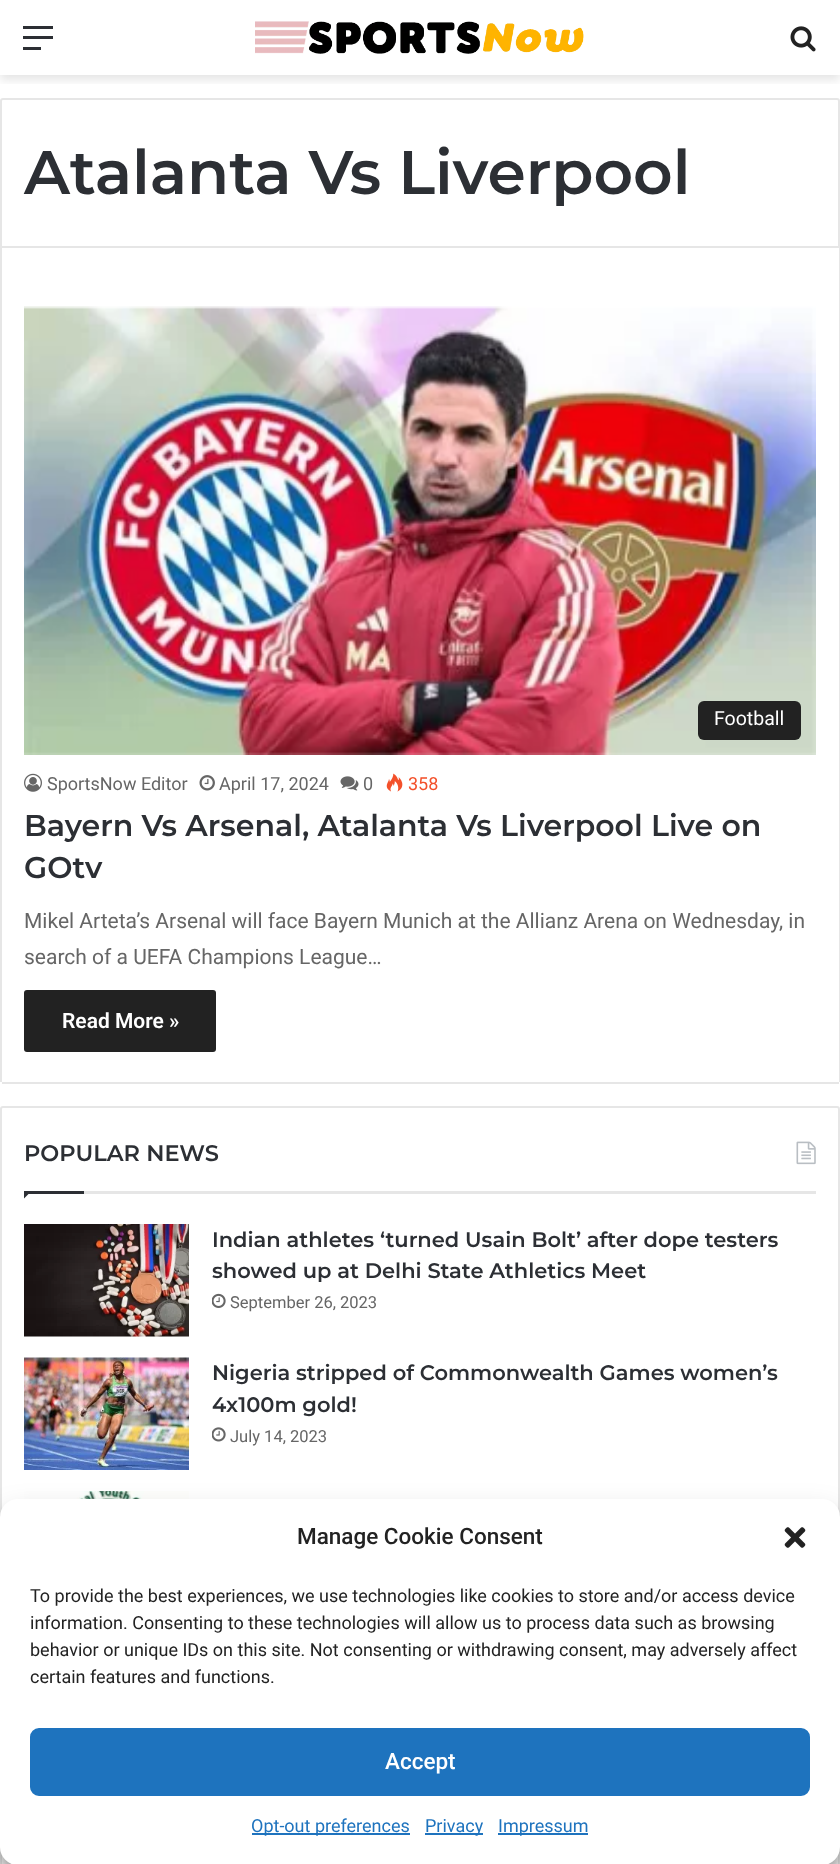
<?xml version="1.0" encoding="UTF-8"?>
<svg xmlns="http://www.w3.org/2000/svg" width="840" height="1864">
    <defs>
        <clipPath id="clip1"><rect x="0" y="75" width="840" height="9"/></clipPath>
        <filter id="blur1" x="-50%" y="-200%" width="200%" height="500%"><feGaussianBlur stdDeviation="5"/></filter>
        <filter id="blur2" x="-50%" y="-200%" width="200%" height="500%"><feGaussianBlur stdDeviation="4.5"/></filter>
        <filter id="blur3" x="-50%" y="-200%" width="200%" height="500%"><feGaussianBlur stdDeviation="15"/></filter>
    </defs>
    <rect width="100%" height="100%" fill="#FFFFFF"/>
    <g clip-path="url(#clip1)">
        <rect x="0" y="5" width="840" height="75" fill="#000000" fill-opacity="0.1" filter="url(#blur1)"/>
    </g>
    <rect x="23" y="36" width="30" height="3" fill="#2C2F34"/>
    <rect x="23" y="26" width="30" height="3" fill="#2C2F34"/>
    <rect x="23" y="47" width="18" height="3" fill="#2C2F34"/>
    <image x="255" y="21" width="329" height="33" href="img_01.png"/>
    <image x="790" y="26" width="26" height="26" href="img_02.png"/>
    <path d="M 3 99 H 837 C 838 99 839 100 839 101 V 247 H 1 V 101 C 1 100 2 99 3 99 Z" fill="none" stroke="#E6E6E6" stroke-width="2"/>
    <text x="24" y="194" font-family="Montserrat" font-size="61.5" font-weight="600" fill="#2C2F34">Atalanta Vs Liverpool</text>
    <rect x="839" y="248" width="1" height="834" fill="#E6E6E6"/>
    <rect x="2" y="1082" width="837" height="2" fill="#E6E6E6"/>
    <rect x="0" y="248" width="2" height="834" fill="#E6E6E6"/>
    <image x="24" y="306" width="792" height="449" href="img_03.png"/>
    <rect x="698" y="701" width="103" height="39" rx="6" fill="#222222"/>
    <text x="714" y="725" font-family="Roboto" font-size="19.5" fill="#FFFFFF">Football</text>
    <image x="24" y="773" width="18" height="19" href="img_04.png"/>
    <text x="47" y="790" font-family="Roboto" font-size="18" fill="#666666">SportsNow Editor</text>
    <image x="199" y="775" width="16" height="16" href="img_05.png"/>
    <text x="219" y="790" font-family="Roboto" font-size="18" fill="#666666">April 17, 2024</text>
    <image x="340" y="776" width="19" height="15" href="img_06.png"/>
    <text x="363" y="790" font-family="Roboto" font-size="18" fill="#666666">0</text>
    <image x="386" y="773" width="17" height="19" href="img_07.png"/>
    <text x="408" y="790" font-family="Roboto" font-size="18" fill="#F3502A">358</text>
    <text font-family="Montserrat" font-size="30" font-weight="600" fill="#2C2F34">
        <tspan x="24" y="836">Bayern Vs Arsenal, Atalanta Vs Liverpool Live on</tspan>
        <tspan x="24" y="878">GOtv</tspan>
    </text>
    <text font-family="Roboto" font-size="21" fill="#666666">
        <tspan x="24" y="928">Mikel Arteta’s Arsenal will face Bayern Munich at the Allianz Arena on Wednesday, in</tspan>
        <tspan x="24" y="964">search of a UEFA Champions League…</tspan>
    </text>
    <rect x="24" y="990" width="192" height="62" rx="3" fill="#222222"/>
    <text x="62" y="1028" font-family="Roboto" font-size="21" font-weight="600" fill="#FFFFFF">Read More »</text>
    <rect x="1" y="1107" width="838" height="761" rx="2" fill="none" stroke="#E6E6E6" stroke-width="2"/>
    <rect x="84" y="1191" width="732" height="3" fill="#E6E6E6"/>
    <text x="24" y="1161" font-family="Montserrat" font-size="22.5" font-weight="600" fill="#2C2F34">POPULAR NEWS</text>
    <image x="796" y="1141" width="20" height="24" href="img_08.png"/>
    <path d="M 24 1191 H 31.5 L 24 1198.5 Z" fill="#2C2F34"/>
    <rect x="24" y="1191" width="60" height="3" fill="#2C2F34"/>
    <image x="24" y="1224" width="165" height="113" href="img_09.png"/>
    <text font-family="Montserrat" font-size="21" font-weight="600" fill="#2C2F34">
        <tspan x="212" y="1247">Indian athletes ‘turned Usain Bolt’ after dope testers</tspan>
        <tspan x="212" y="1278">showed up at Delhi State Athletics Meet</tspan>
    </text>
    <image x="212" y="1293" width="14" height="15" href="img_10.png"/>
    <text x="230" y="1308" font-family="Roboto" font-size="16.5" fill="#666666">September 26, 2023</text>
    <image x="24" y="1357" width="165" height="113" href="img_11.png"/>
    <text font-family="Montserrat" font-size="21" font-weight="600" fill="#2C2F34">
        <tspan x="212" y="1380">Nigeria stripped of Commonwealth Games women’s</tspan>
        <tspan x="212" y="1412">4x100m gold!</tspan>
    </text>
    <image x="212" y="1427" width="14" height="15" href="img_12.png"/>
    <text x="230" y="1442" font-family="Roboto" font-size="16.5" fill="#666666">July 14, 2023</text>
    <image x="24" y="1491" width="165" height="8" href="img_13.png"/>
    <rect x="0" y="1508" width="840" height="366" rx="18" fill="#000000" fill-opacity="0.23" filter="url(#blur2)"/>
    <rect x="0" y="1514" width="840" height="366" rx="18" fill="#000000" fill-opacity="0.19" filter="url(#blur3)"/>
    <rect x="0" y="1499" width="840" height="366" rx="18" fill="#FFFFFF"/>
    <text x="297" y="1544" font-family="Roboto" font-size="22.5" font-weight="500" fill="#222222">Manage Cookie Consent</text>
    <image x="784" y="1527" width="22" height="21" href="img_14.png"/>
    <text font-family="Roboto" font-size="18" fill="#222222">
        <tspan x="30" y="1602">To provide the best experiences, we use technologies like cookies to store and/or access device</tspan>
        <tspan x="30" y="1629">information. Consenting to these technologies will allow us to process data such as browsing</tspan>
        <tspan x="30" y="1656">behavior or unique IDs on this site. Not consenting or withdrawing consent, may adversely affect</tspan>
        <tspan x="30" y="1683">certain features and functions.</tspan>
    </text>
    <rect x="31" y="1729" width="778" height="66" rx="8" fill="#1E73BE" stroke="#1E73BE" stroke-width="2"/>
    <text x="385" y="1769" font-family="Roboto" font-size="22.5" font-weight="500" fill="#FFFFFF">Accept</text>
    <rect x="252" y="1833" width="158" height="2" fill="#1E73BE"/>
    <text x="251" y="1832" font-family="Roboto" font-size="18" fill="#1E73BE">Opt-out preferences</text>
    <rect x="425" y="1833" width="58" height="2" fill="#1E73BE"/>
    <text x="425" y="1832" font-family="Roboto" font-size="18" fill="#1E73BE">Privacy</text>
    <rect x="498" y="1833" width="90" height="2" fill="#1E73BE"/>
    <text x="498" y="1832" font-family="Roboto" font-size="18" fill="#1E73BE">Impressum</text>
</svg>
